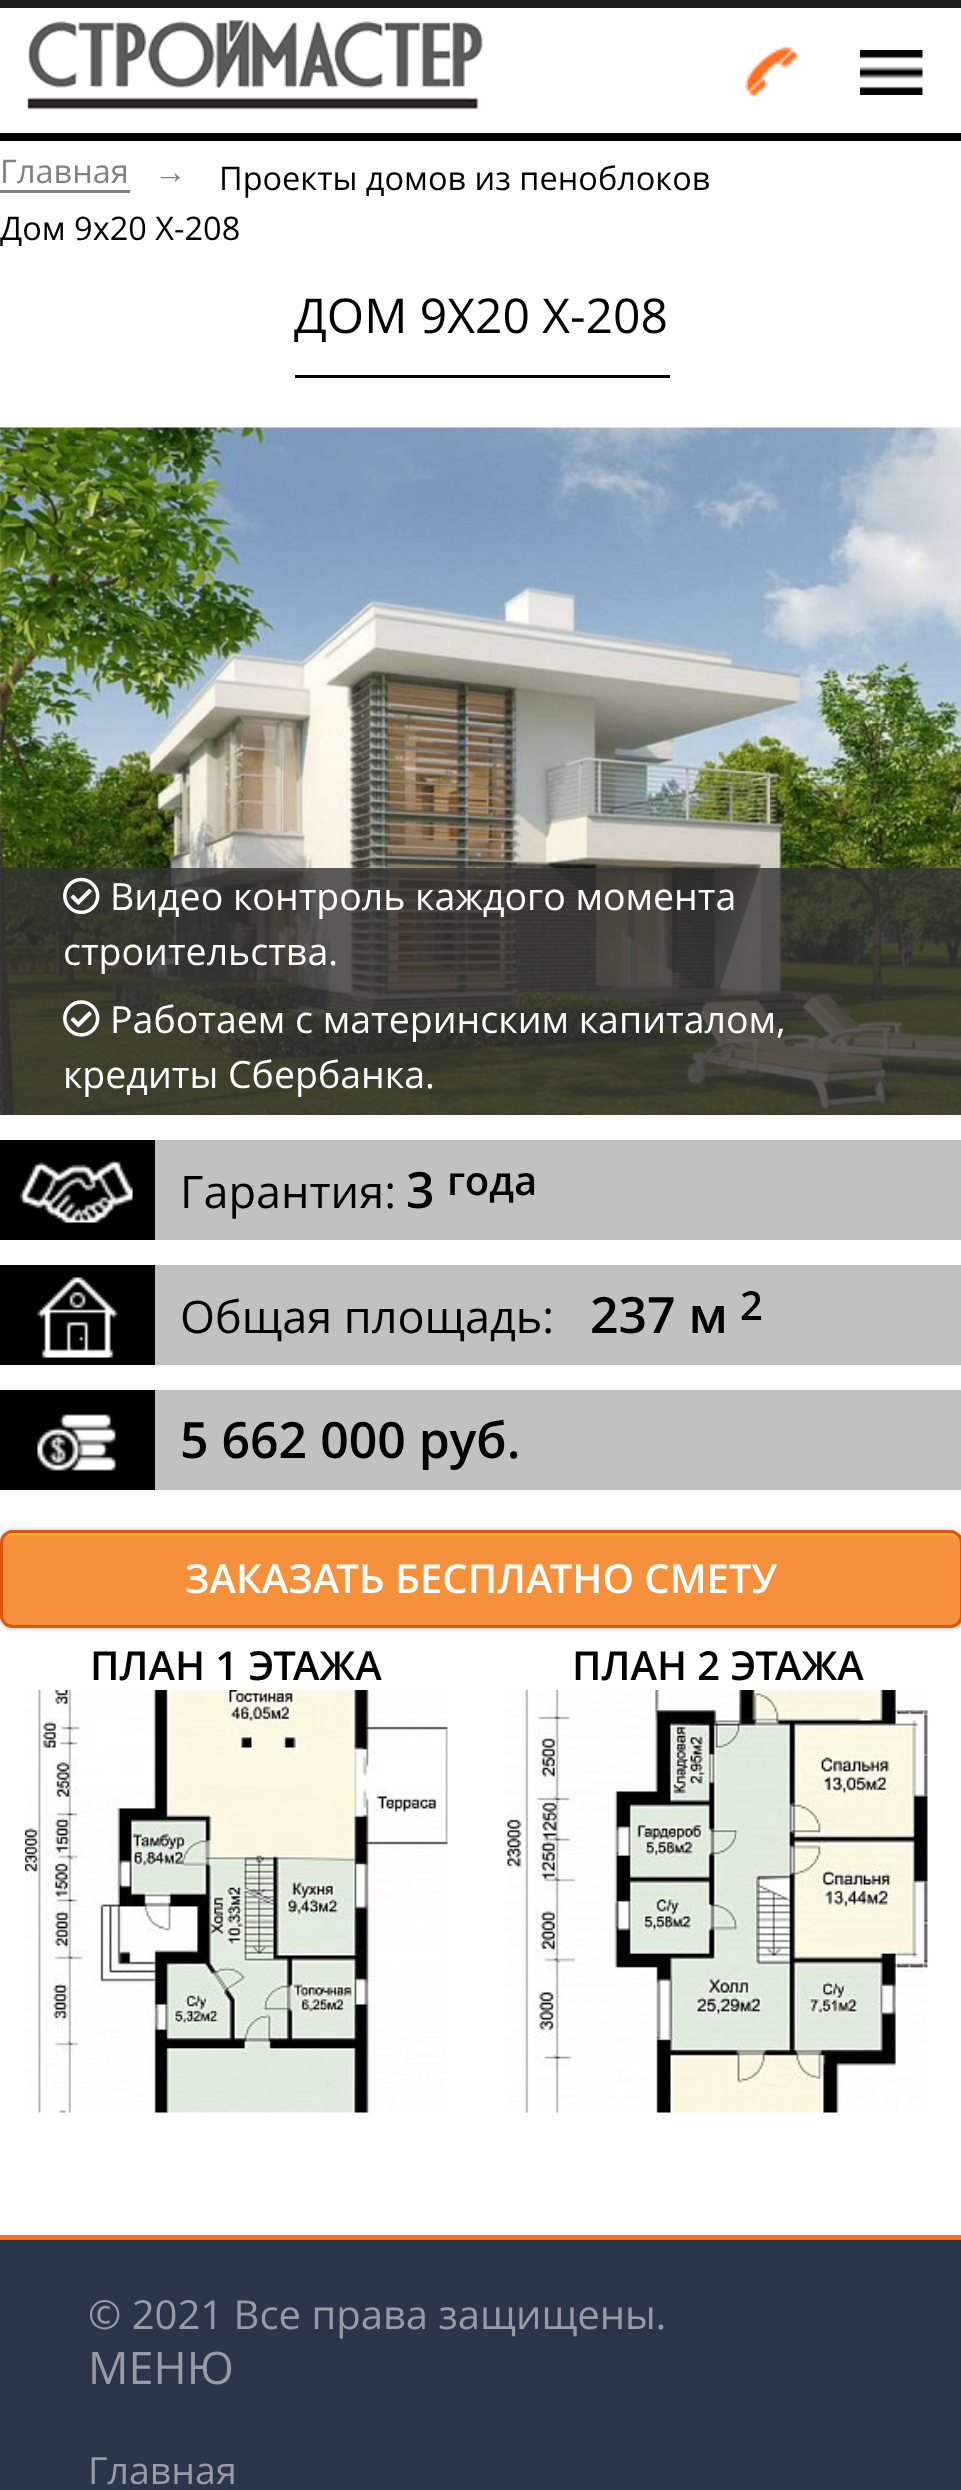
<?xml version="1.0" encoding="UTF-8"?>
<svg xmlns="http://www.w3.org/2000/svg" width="961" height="2490">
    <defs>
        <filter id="blur1" x="-50%" y="-200%" width="200%" height="500%"><feGaussianBlur stdDeviation="2.5"/></filter>
    </defs>
    <rect width="100%" height="100%" fill="#FFFFFF"/>
    <rect x="0" y="133" width="961" height="8" fill="#000000"/>
    <rect x="0" y="0" width="961" height="8" fill="#202020"/>
    <image x="26" y="20" width="457" height="90" href="img_01.png"/>
    <image x="745" y="47" width="53" height="51" href="img_02.png"/>
    <image x="860" y="50" width="63" height="45" href="img_03.png"/>
    <rect x="0" y="190" width="130" height="3" fill="#808080"/>
    <text x="0" y="183" font-family="Open Sans" font-size="32.5" fill="#808080">Главная</text>
    <text x="154" y="183" font-family="Liberation Serif" font-size="32.5" fill="#808080">→</text>
    <text x="219" y="190" font-family="Open Sans" font-size="32.5" fill="#000000">Проекты домов из пеноблоков</text>
    <text x="0" y="240" font-family="Open Sans" font-size="32.5" fill="#000000">Дом 9x20 Х-208</text>
    <text x="294" y="333" font-family="Open Sans" font-size="48" fill="#000000">ДОМ 9X20 Х-208</text>
    <rect x="295" y="375" width="375" height="3" fill="#000000"/>
    <image x="0" y="427" width="961" height="688" href="img_04.png"/>
    <rect x="0" y="868" width="961" height="247" fill="#333333" fill-opacity="0.8"/>
    <image x="63" y="877" width="37" height="38" href="img_05.png"/>
    <text x="110" y="910" font-family="Open Sans" font-size="37.5" fill="#FFFFFF">Видео контроль каждого момента</text>
    <text x="63" y="965" font-family="Open Sans" font-size="37.5" fill="#FFFFFF">строительства.</text>
    <image x="63" y="1000" width="37" height="37" href="img_06.png"/>
    <text x="110" y="1033" font-family="Open Sans" font-size="37.5" fill="#FFFFFF">Работаем с материнским капиталом,</text>
    <text x="63" y="1088" font-family="Open Sans" font-size="37.5" fill="#FFFFFF">кредиты Сбербанка.</text>
    <rect x="155" y="1140" width="806" height="100" fill="#C1C1C1"/>
    <rect x="0" y="1140" width="155" height="100" fill="#000000"/>
    <image x="20" y="1160" width="113" height="63" href="img_07.png"/>
    <text x="180" y="1208" font-family="Open Sans" font-size="45" fill="#000000">Гарантия:</text>
    <text x="406" y="1208" font-family="Open Sans" font-size="50" font-weight="600" fill="#000000">3</text>
    <text x="447" y="1195" font-family="Open Sans" font-size="40" font-weight="600" fill="#000000">года</text>
    <rect x="155" y="1265" width="806" height="100" fill="#C1C1C1"/>
    <rect x="0" y="1265" width="155" height="100" fill="#000000"/>
    <image x="37" y="1277" width="81" height="81" href="img_08.png"/>
    <text x="180" y="1333" font-family="Open Sans" font-size="45" fill="#000000">Общая площадь:</text>
    <text x="590" y="1333" font-family="Open Sans" font-size="50" font-weight="600" fill="#000000">237 м</text>
    <text x="740" y="1320" font-family="Open Sans" font-size="40" font-weight="600" fill="#000000">2</text>
    <rect x="155" y="1390" width="806" height="100" fill="#C1C1C1"/>
    <rect x="0" y="1390" width="155" height="100" fill="#000000"/>
    <image x="37" y="1414" width="80" height="57" href="img_09.png"/>
    <text x="180" y="1458" font-family="Open Sans" font-size="50" font-weight="600" fill="#000000">5 662 000 руб.</text>
    <rect x="0" y="1530" width="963" height="98" rx="13" fill="#BABABA" filter="url(#blur1)"/>
    <rect x="0" y="1530" width="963" height="98" rx="13" fill="#F7903B"/>
    <path d="M 12 1535 H 950 C 956 1535 960 1539 960 1545 V 1543 C 960 1537 956 1533 950 1533 H 13 C 9 1533 5 1536 4 1540 C 5 1537 9 1535 12 1535 Z" fill="#FEB938"/>
    <rect x="1.5" y="1531.5" width="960" height="95" rx="11.5" fill="none" stroke="#DD560C" stroke-width="3"/>
    <text x="185" y="1593" font-family="Open Sans" font-size="40" font-weight="600" fill="#FFFFFF">ЗАКАЗАТЬ БЕСПЛАТНО СМЕТУ</text>
    <text x="90" y="1680" font-family="Open Sans" font-size="40" font-weight="600" fill="#000000">ПЛАН 1 ЭТАЖА</text>
    <image x="25" y="1690" width="423" height="423" href="img_10.png"/>
    <text x="572" y="1680" font-family="Open Sans" font-size="40" font-weight="600" fill="#000000">ПЛАН 2 ЭТАЖА</text>
    <image x="507" y="1690" width="421" height="423" href="img_11.png"/>
    <rect x="0" y="2235" width="961" height="5" fill="#FE6F20"/>
    <rect x="0" y="2240" width="961" height="250" fill="#2C364A"/>
    <text x="88" y="2329" font-family="Open Sans" font-size="40" fill="#969BA5">© 2021 Все права защищены.</text>
    <text x="88" y="2384" font-family="Open Sans" font-size="45" fill="#969BA5">МЕНЮ</text>
    <text x="88" y="2484" font-family="Open Sans" font-size="37.5" fill="#969BA5">Главная</text>
</svg>
